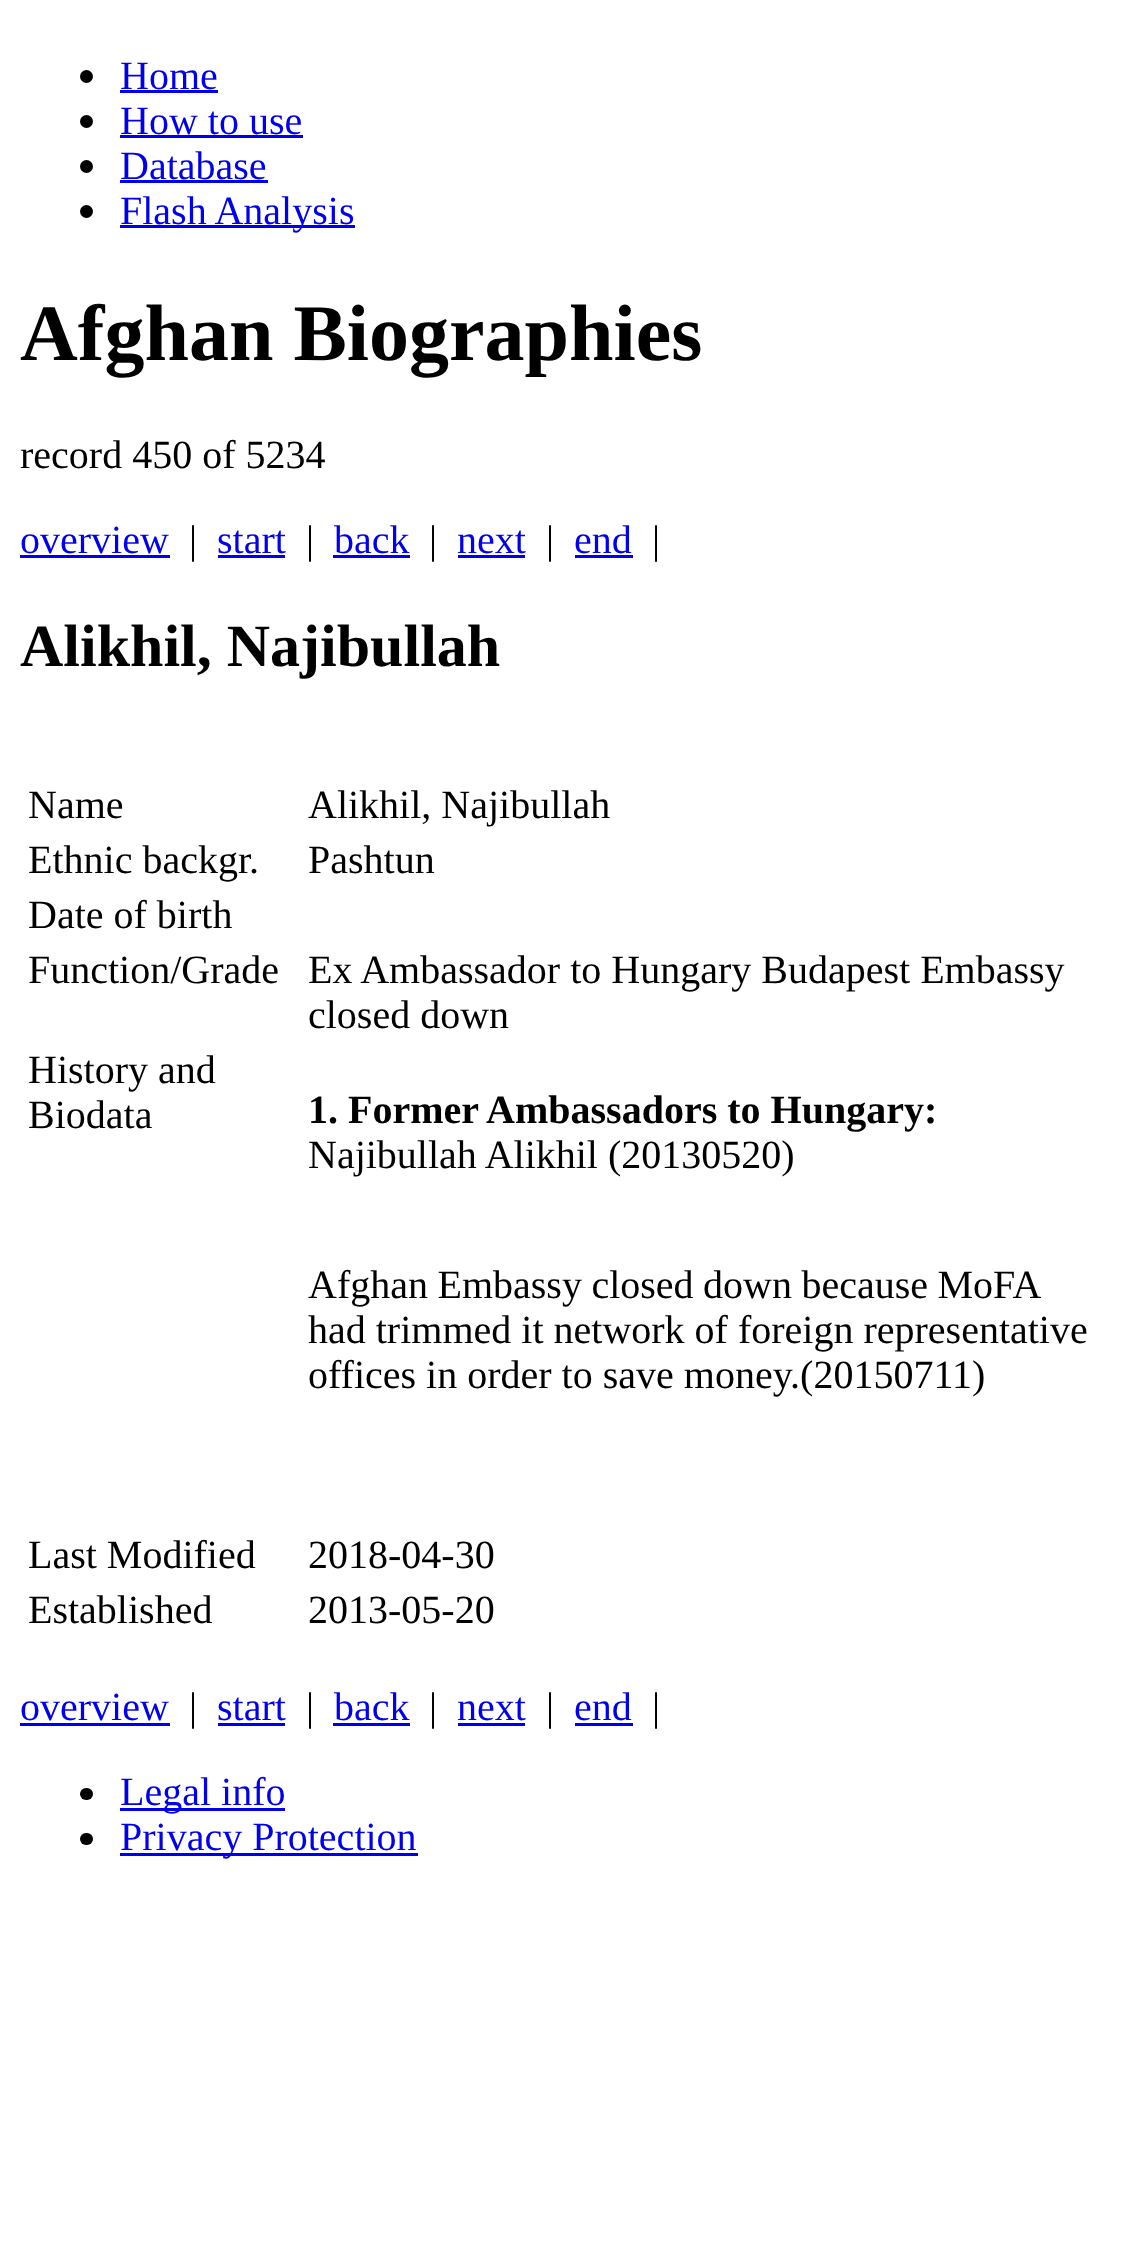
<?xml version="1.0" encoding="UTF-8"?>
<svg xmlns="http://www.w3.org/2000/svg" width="1121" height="2265">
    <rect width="100%" height="100%" fill="#FFFFFF"/>
    <circle cx="86.5" cy="76.5" r="6.5" fill="#000000"/>
    <text x="120" y="89" font-family="Liberation Serif" font-size="40" fill="#0000EE">Home</text>
    <rect x="120" y="90" width="98" height="3" fill="#0000EE"/>
    <circle cx="86.5" cy="121.5" r="6.5" fill="#000000"/>
    <text x="120" y="134" font-family="Liberation Serif" font-size="40" fill="#0000EE">How to use</text>
    <rect x="120" y="135" width="183" height="3" fill="#0000EE"/>
    <circle cx="86.5" cy="166.5" r="6.5" fill="#000000"/>
    <text x="120" y="179" font-family="Liberation Serif" font-size="40" fill="#0000EE">Database</text>
    <rect x="120" y="180" width="148" height="3" fill="#0000EE"/>
    <circle cx="86.5" cy="211.5" r="6.5" fill="#000000"/>
    <rect x="120" y="225" width="235" height="3" fill="#0000EE"/>
    <text x="120" y="224" font-family="Liberation Serif" font-size="40" fill="#0000EE">Flash Analysis</text>
    <text x="20" y="360" font-family="Liberation Serif" font-size="80" font-weight="700" fill="#000000">Afghan Biographies</text>
    <text x="20" y="468" font-family="Liberation Serif" font-size="40" fill="#000000">record 450 of 5234</text>
    <text x="20" y="553" font-family="Liberation Serif" font-size="40" fill="#0000EE">overview</text>
    <rect x="20" y="555" width="150" height="3" fill="#0000EE"/>
    <text x="189" y="553" font-family="Liberation Serif" font-size="40" fill="#000000">|</text>
    <text x="217" y="553" font-family="Liberation Serif" font-size="40" fill="#0000EE">start</text>
    <rect x="218" y="555" width="67" height="3" fill="#0000EE"/>
    <text x="306" y="553" font-family="Liberation Serif" font-size="40" fill="#000000">|</text>
    <text x="334" y="553" font-family="Liberation Serif" font-size="40" fill="#0000EE">back</text>
    <rect x="333" y="555" width="77" height="3" fill="#0000EE"/>
    <text x="429" y="553" font-family="Liberation Serif" font-size="40" fill="#000000">|</text>
    <text x="457" y="553" font-family="Liberation Serif" font-size="40" fill="#0000EE">next</text>
    <rect x="458" y="555" width="67" height="3" fill="#0000EE"/>
    <text x="546" y="553" font-family="Liberation Serif" font-size="40" fill="#000000">|</text>
    <text x="574" y="553" font-family="Liberation Serif" font-size="40" fill="#0000EE">end</text>
    <rect x="575" y="555" width="58" height="3" fill="#0000EE"/>
    <text x="652" y="553" font-family="Liberation Serif" font-size="40" fill="#000000">|</text>
    <text x="20" y="666" font-family="Liberation Serif" font-size="60" font-weight="700" fill="#000000">Alikhil, Najibullah</text>
    <text x="28" y="818" font-family="Liberation Serif" font-size="40" fill="#000000">Name</text>
    <text x="308" y="818" font-family="Liberation Serif" font-size="40" fill="#000000">Alikhil, Najibullah</text>
    <text x="28" y="873" font-family="Liberation Serif" font-size="40" fill="#000000">Ethnic backgr.</text>
    <text x="308" y="873" font-family="Liberation Serif" font-size="40" fill="#000000">Pashtun</text>
    <text font-family="Liberation Serif" font-size="40" fill="#000000">
        <tspan x="28" y="928">Date of birth</tspan>
        <tspan x="28" y="983">Function/Grade</tspan>
    </text>
    <text font-family="Liberation Serif" font-size="40" fill="#000000">
        <tspan x="308" y="983">Ex Ambassador to Hungary Budapest Embassy</tspan>
        <tspan x="308" y="1028">closed down</tspan>
    </text>
    <text font-family="Liberation Serif" font-size="40" fill="#000000">
        <tspan x="28" y="1083">History and</tspan>
        <tspan x="28" y="1128">Biodata</tspan>
    </text>
    <text x="308" y="1123" font-family="Liberation Serif" font-size="40" font-weight="700" fill="#000000">1. Former Ambassadors to Hungary:</text>
    <text x="308" y="1168" font-family="Liberation Serif" font-size="40" fill="#000000">Najibullah Alikhil (20130520)</text>
    <text font-family="Liberation Serif" font-size="40" fill="#000000">
        <tspan x="308" y="1298" word-spacing="-0.5">Afghan Embassy closed down because MoFA</tspan>
        <tspan x="308" y="1343">had trimmed it network of foreign representative</tspan>
        <tspan x="308" y="1388">offices in order to save money.(20150711)</tspan>
    </text>
    <text x="28" y="1568" font-family="Liberation Serif" font-size="40" fill="#000000">Last Modified</text>
    <text x="308" y="1568" font-family="Liberation Serif" font-size="40" fill="#000000">2018-04-30</text>
    <text x="28" y="1623" font-family="Liberation Serif" font-size="40" fill="#000000">Established</text>
    <text x="308" y="1623" font-family="Liberation Serif" font-size="40" fill="#000000">2013-05-20</text>
    <text x="20" y="1720" font-family="Liberation Serif" font-size="40" fill="#0000EE">overview</text>
    <rect x="20" y="1723" width="150" height="3" fill="#0000EE"/>
    <text x="189" y="1720" font-family="Liberation Serif" font-size="40" fill="#000000">|</text>
    <text x="217" y="1720" font-family="Liberation Serif" font-size="40" fill="#0000EE">start</text>
    <rect x="218" y="1723" width="67" height="3" fill="#0000EE"/>
    <text x="306" y="1720" font-family="Liberation Serif" font-size="40" fill="#000000">|</text>
    <text x="334" y="1720" font-family="Liberation Serif" font-size="40" fill="#0000EE">back</text>
    <rect x="333" y="1723" width="77" height="3" fill="#0000EE"/>
    <text x="429" y="1720" font-family="Liberation Serif" font-size="40" fill="#000000">|</text>
    <text x="457" y="1720" font-family="Liberation Serif" font-size="40" fill="#0000EE">next</text>
    <rect x="458" y="1723" width="67" height="3" fill="#0000EE"/>
    <text x="546" y="1720" font-family="Liberation Serif" font-size="40" fill="#000000">|</text>
    <text x="574" y="1720" font-family="Liberation Serif" font-size="40" fill="#0000EE">end</text>
    <rect x="575" y="1723" width="58" height="3" fill="#0000EE"/>
    <text x="652" y="1720" font-family="Liberation Serif" font-size="40" fill="#000000">|</text>
    <rect x="80" y="1788" width="13" height="12" rx="6" fill="#000000"/>
    <rect x="120" y="1808" width="165" height="3" fill="#0000EE"/>
    <text x="120" y="1805" font-family="Liberation Serif" font-size="40" fill="#0000EE">Legal info</text>
    <rect x="80" y="1833" width="13" height="12" rx="6" fill="#000000"/>
    <rect x="120" y="1853" width="298" height="3" fill="#0000EE"/>
    <text x="120" y="1850" font-family="Liberation Serif" font-size="40" fill="#0000EE">Privacy Protection</text>
</svg>
